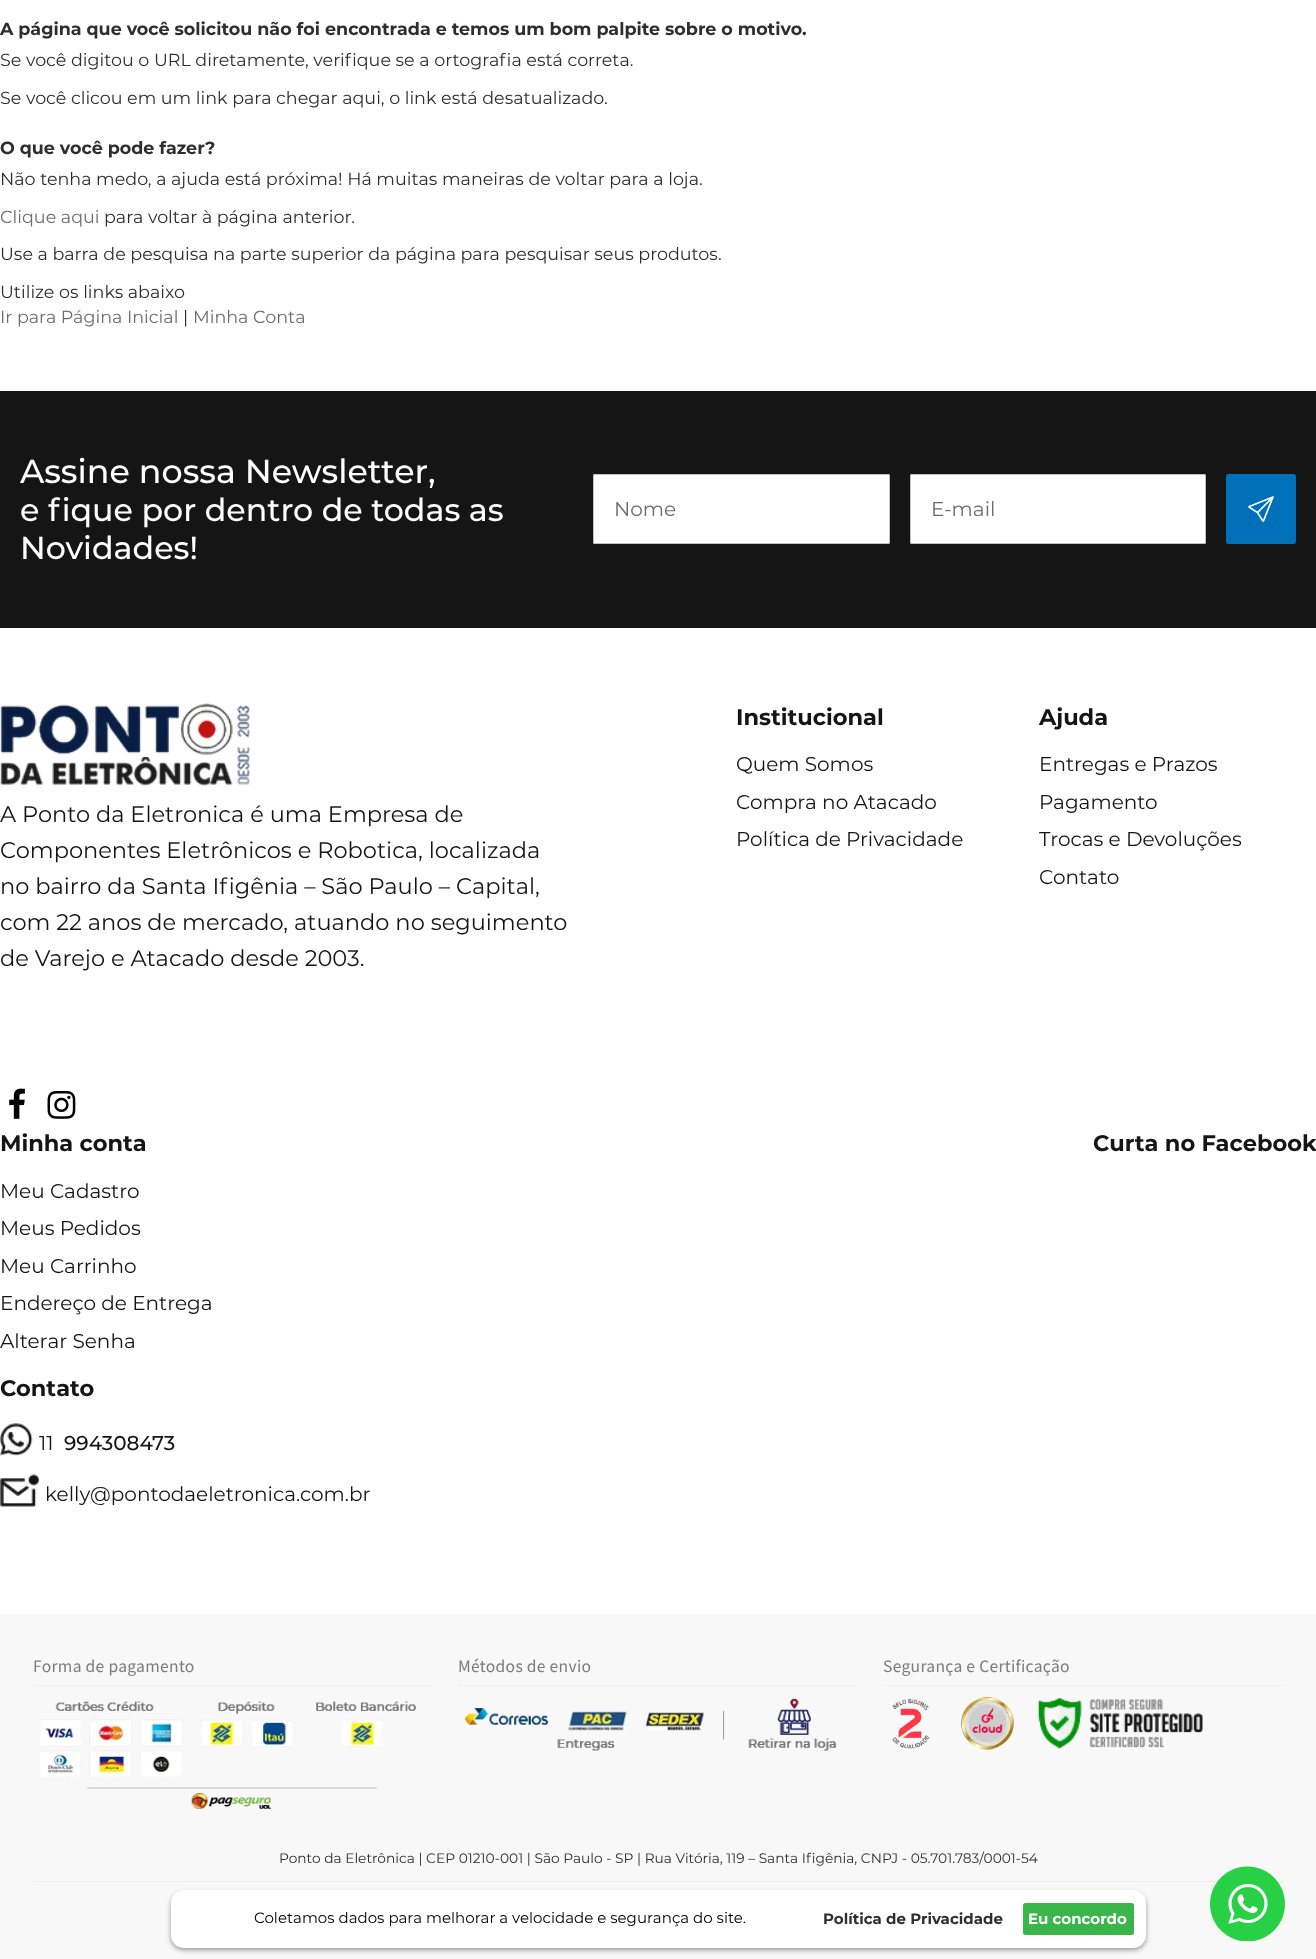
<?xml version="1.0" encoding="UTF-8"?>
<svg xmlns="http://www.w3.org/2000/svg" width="1316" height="1959">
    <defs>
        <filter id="blur1" x="-50%" y="-200%" width="200%" height="500%"><feGaussianBlur stdDeviation="2.5"/></filter>
    </defs>
    <rect width="100%" height="100%" fill="#FFFFFF"/>
    <text x="0" y="35" font-family="Montserrat" font-size="17.5" font-weight="700" fill="#2E2E2E">A página que você solicitou não foi encontrada e temos um bom palpite sobre o motivo.</text>
    <text x="0" y="66" font-family="Montserrat" font-size="17.5" fill="#2E2E2E">Se você digitou o URL diretamente, verifique se a ortografia está correta.</text>
    <text x="0" y="104" font-family="Montserrat" font-size="17.5" fill="#2E2E2E">Se você clicou em um link para chegar aqui, o link está desatualizado.</text>
    <text x="0" y="154" font-family="Montserrat" font-size="17.5" font-weight="700" fill="#2E2E2E">O que você pode fazer?</text>
    <text x="0" y="185" font-family="Montserrat" font-size="17.5" fill="#2E2E2E">Não tenha medo, a ajuda está próxima! Há muitas maneiras de voltar para a loja.</text>
    <text x="0" y="223" font-family="Montserrat" font-size="17.5" fill="#6D6D6D">Clique aqui</text>
    <text x="104" y="223" font-family="Montserrat" font-size="17.5" fill="#2E2E2E">para voltar à página anterior.</text>
    <text x="0" y="260" font-family="Montserrat" font-size="17.5" fill="#2E2E2E">Use a barra de pesquisa na parte superior da página para pesquisar seus produtos.</text>
    <text x="0" y="298" font-family="Montserrat" font-size="17.5" fill="#2E2E2E">Utilize os links abaixo</text>
    <text x="0" y="323" font-family="Montserrat" font-size="17.5" fill="#6D6D6D">Ir para Página Inicial</text>
    <text x="183" y="323" font-family="Montserrat" font-size="17.5" fill="#2E2E2E">|</text>
    <text x="193" y="323" font-family="Montserrat" font-size="17.5" fill="#6D6D6D">Minha Conta</text>
    <rect x="0" y="1614" width="1316" height="345" fill="#F8F8F8"/>
    <rect x="171" y="1893" width="975" height="57" rx="13" fill="#000000" fill-opacity="0.4" filter="url(#blur1)"/>
    <rect x="171" y="1890" width="975" height="58" rx="13" fill="#FFFFFF"/>
    <text x="254" y="1923" font-family="Montserrat" font-size="15" fill="#000000">Coletamos dados para melhorar a velocidade e segurança do site.</text>
    <text x="823" y="1924" font-family="Montserrat" font-size="15" font-weight="700" fill="#2E2E2E">Política de Privacidade</text>
    <rect x="1023" y="1903" width="111" height="32" rx="2.5" fill="#39B54A"/>
    <text x="1028" y="1924" font-family="Montserrat" font-size="15" font-weight="700" fill="#FFFFFF">Eu concordo</text>
    <rect x="0" y="391" width="1316" height="237" fill="#151515"/>
    <text x="20" y="483" font-family="Montserrat" font-size="33.25" font-weight="500" fill="#FFFFFF">Assine nossa Newsletter,</text>
    <text font-family="Montserrat" font-size="31.7" font-weight="500" fill="#FFFFFF">
        <tspan x="20" y="521">e fique por dentro de todas as</tspan>
        <tspan x="20" y="559">Novidades!</tspan>
    </text>
    <rect x="593.5" y="474.5" width="296" height="69" rx="0.5" fill="#FFFFFF" stroke="#C2C2C2"/>
    <text x="614" y="516" font-family="Montserrat" font-size="20" fill="#6D6D6D">Nome</text>
    <rect x="910.5" y="474.5" width="295" height="69" rx="0.5" fill="#FFFFFF" stroke="#C2C2C2"/>
    <text x="931" y="516" font-family="Montserrat" font-size="20" fill="#6D6D6D">E-mail</text>
    <rect x="1226" y="474" width="70" height="70" rx="2.5" fill="#0070BB"/>
    <image x="1248" y="496" width="26" height="26" href="img_01.png"/>
    <image x="0" y="703" width="251" height="83" href="img_02.png"/>
    <text font-family="Montserrat" font-size="22.5" fill="#151515">
        <tspan x="0" y="822">A Ponto da Eletronica é uma Empresa de</tspan>
        <tspan x="0" y="858">Componentes Eletrônicos e Robotica, localizada</tspan>
        <tspan x="0" y="894">no bairro da Santa Ifigênia – São Paulo – Capital,</tspan>
        <tspan x="0" y="930">com 22 anos de mercado, atuando no seguimento</tspan>
        <tspan x="0" y="966">de Varejo e Atacado desde 2003.</tspan>
    </text>
    <image x="9" y="1088" width="16" height="31" href="img_03.png"/>
    <image x="47" y="1090" width="29" height="29" href="img_04.png"/>
    <text x="736" y="725" font-family="Montserrat" font-size="22.5" font-weight="700" fill="#151515">Institucional</text>
    <text font-family="Montserrat" font-size="20" fill="#151515">
        <tspan x="736" y="771">Quem Somos</tspan>
        <tspan x="736" y="809">Compra no Atacado</tspan>
        <tspan x="736" y="846">Política de Privacidade</tspan>
    </text>
    <text x="1039" y="725" font-family="Montserrat" font-size="22.5" font-weight="700" fill="#151515">Ajuda</text>
    <text font-family="Montserrat" font-size="20" fill="#151515">
        <tspan x="1039" y="771">Entregas e Prazos</tspan>
        <tspan x="1039" y="809">Pagamento</tspan>
        <tspan x="1039" y="846">Trocas e Devoluções</tspan>
        <tspan x="1039" y="884">Contato</tspan>
    </text>
    <text x="0" y="1151" font-family="Montserrat" font-size="22.5" font-weight="700" fill="#151515">Minha conta</text>
    <text font-family="Montserrat" font-size="20" fill="#151515">
        <tspan x="0" y="1198">Meu Cadastro</tspan>
        <tspan x="0" y="1235">Meus Pedidos</tspan>
        <tspan x="0" y="1273">Meu Carrinho</tspan>
        <tspan x="0" y="1310">Endereço de Entrega</tspan>
        <tspan x="0" y="1348">Alterar Senha</tspan>
    </text>
    <text x="0" y="1396" font-family="Montserrat" font-size="22.5" font-weight="700" fill="#151515">Contato</text>
    <image x="0" y="1423" width="33" height="33" href="img_05.png"/>
    <text x="39" y="1450" font-family="Montserrat" font-size="20" fill="#151515">11</text>
    <text x="64" y="1450" font-family="Montserrat" font-size="20" font-weight="500" fill="#151515">994308473</text>
    <image x="0" y="1474" width="39" height="33" href="img_06.png"/>
    <text x="45" y="1501" font-family="Montserrat" font-size="20" fill="#151515">kelly@pontodaeletronica.com.br</text>
    <text x="1093" y="1151" font-family="Montserrat" font-size="22.5" font-weight="700" fill="#151515">Curta no Facebook</text>
    <text x="33" y="1672" font-family="Source Sans Pro" font-size="17.5" letter-spacing="0.3" fill="#7B7B7B">Forma de pagamento</text>
    <rect x="33" y="1685" width="400" height="1" fill="#EEEEEE"/>
    <image x="40" y="1701" width="376" height="108" href="img_07.png"/>
    <text x="458" y="1672" font-family="Source Sans Pro" font-size="17.5" letter-spacing="0.3" fill="#7B7B7B">Métodos de envio</text>
    <rect x="458" y="1685" width="401" height="1" fill="#EEEEEE"/>
    <image x="464" y="1698" width="373" height="53" href="img_08.png"/>
    <text x="883" y="1672" font-family="Source Sans Pro" font-size="17.5" letter-spacing="0.3" fill="#7B7B7B">Segurança e Certificação</text>
    <rect x="884" y="1685" width="400" height="1" fill="#EEEEEE"/>
    <image x="892" y="1699" width="38" height="50" href="img_09.png"/>
    <image x="961" y="1697" width="53" height="53" href="img_10.png"/>
    <image x="1038" y="1698" width="165" height="51" href="img_11.png"/>
    <rect x="33" y="1881" width="1251" height="1" fill="#EEEEEE"/>
    <text x="279" y="1863" font-family="Montserrat" font-size="13.75" fill="#2E2E2E">Ponto da Eletrônica | CEP 01210-001 | São Paulo - SP | Rua Vitória, 119 – Santa Ifigênia, CNPJ - 05.701.783/0001-54</text>
    <image x="1210" y="1866" width="75" height="75" href="img_12.png"/>
</svg>
